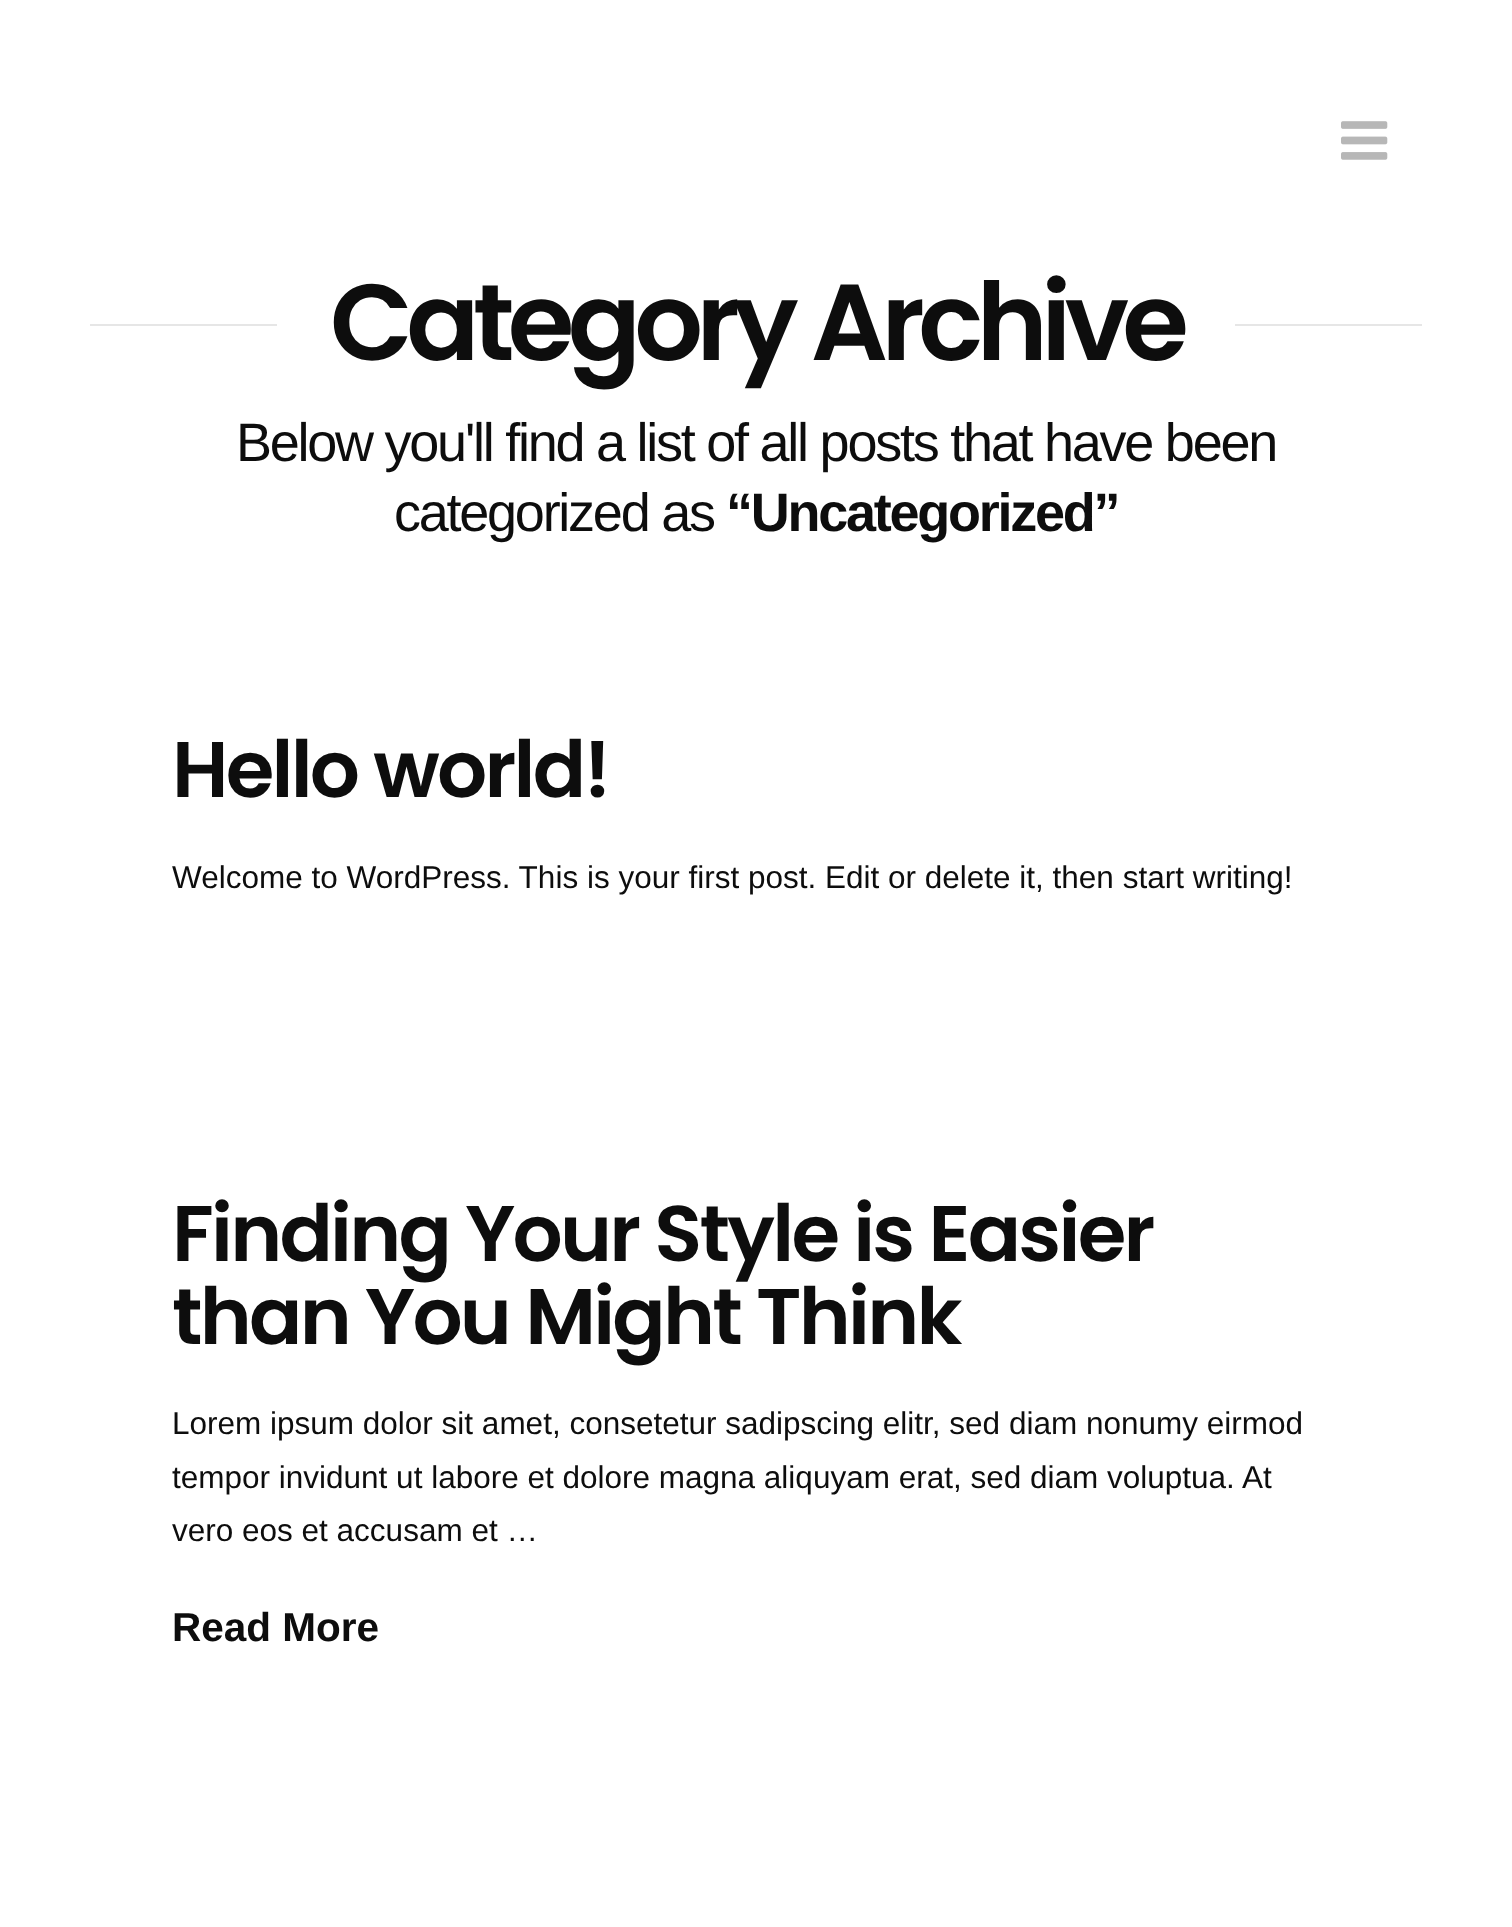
<?xml version="1.0" encoding="UTF-8"?>
<svg xmlns="http://www.w3.org/2000/svg" width="1512" height="1927">
    <rect width="100%" height="100%" fill="#FFFFFF"/>
    <image x="1341" y="121" width="47" height="39" href="img_01.png"/>
    <rect x="90" y="324" width="187" height="2" fill="#E6E6E6"/>
    <text x="330" y="360" font-family="Poppins" font-size="108" font-weight="600" letter-spacing="-6.75" fill="#0D0D0D">Category Archive</text>
    <rect x="1235" y="324" width="187" height="2" fill="#E6E6E6"/>
    <text x="236" y="461" font-family="Liberation Sans" font-size="54" letter-spacing="-2.25" fill="#0D0D0D">Below you'll find a list of all posts that have been</text>
    <text x="394" y="531" font-family="Liberation Sans" font-size="54" letter-spacing="-2.25" fill="#0D0D0D">categorized as</text>
    <text x="726" y="531" font-family="Liberation Sans" font-size="54" font-weight="700" letter-spacing="-2.25" fill="#0D0D0D">“Uncategorized”</text>
    <text x="172" y="797" font-family="Poppins" font-size="78.75" font-weight="600" letter-spacing="-2.75" fill="#0D0D0D">Hello world!</text>
    <text x="172" y="888" font-family="Liberation Sans" font-size="31.5" fill="#0D0D0D">Welcome to WordPress. This is your first post. Edit or delete it, then start writing!</text>
    <text font-family="Poppins" font-size="78.75" font-weight="600" letter-spacing="-2.75" fill="#0D0D0D">
        <tspan x="172" y="1261">Finding Your Style is Easier</tspan>
        <tspan x="172" y="1344">than You Might Think</tspan>
    </text>
    <text font-family="Liberation Sans" font-size="31.5" fill="#0D0D0D">
        <tspan x="172" y="1434">Lorem ipsum dolor sit amet, consetetur sadipscing elitr, sed diam nonumy eirmod</tspan>
        <tspan x="172" y="1488">tempor invidunt ut labore et dolore magna aliquyam erat, sed diam voluptua. At</tspan>
        <tspan x="172" y="1541">vero eos et accusam et …</tspan>
    </text>
    <text x="172" y="1641" font-family="Liberation Sans" font-size="40.5" font-weight="700" fill="#0D0D0D">Read More</text>
</svg>
